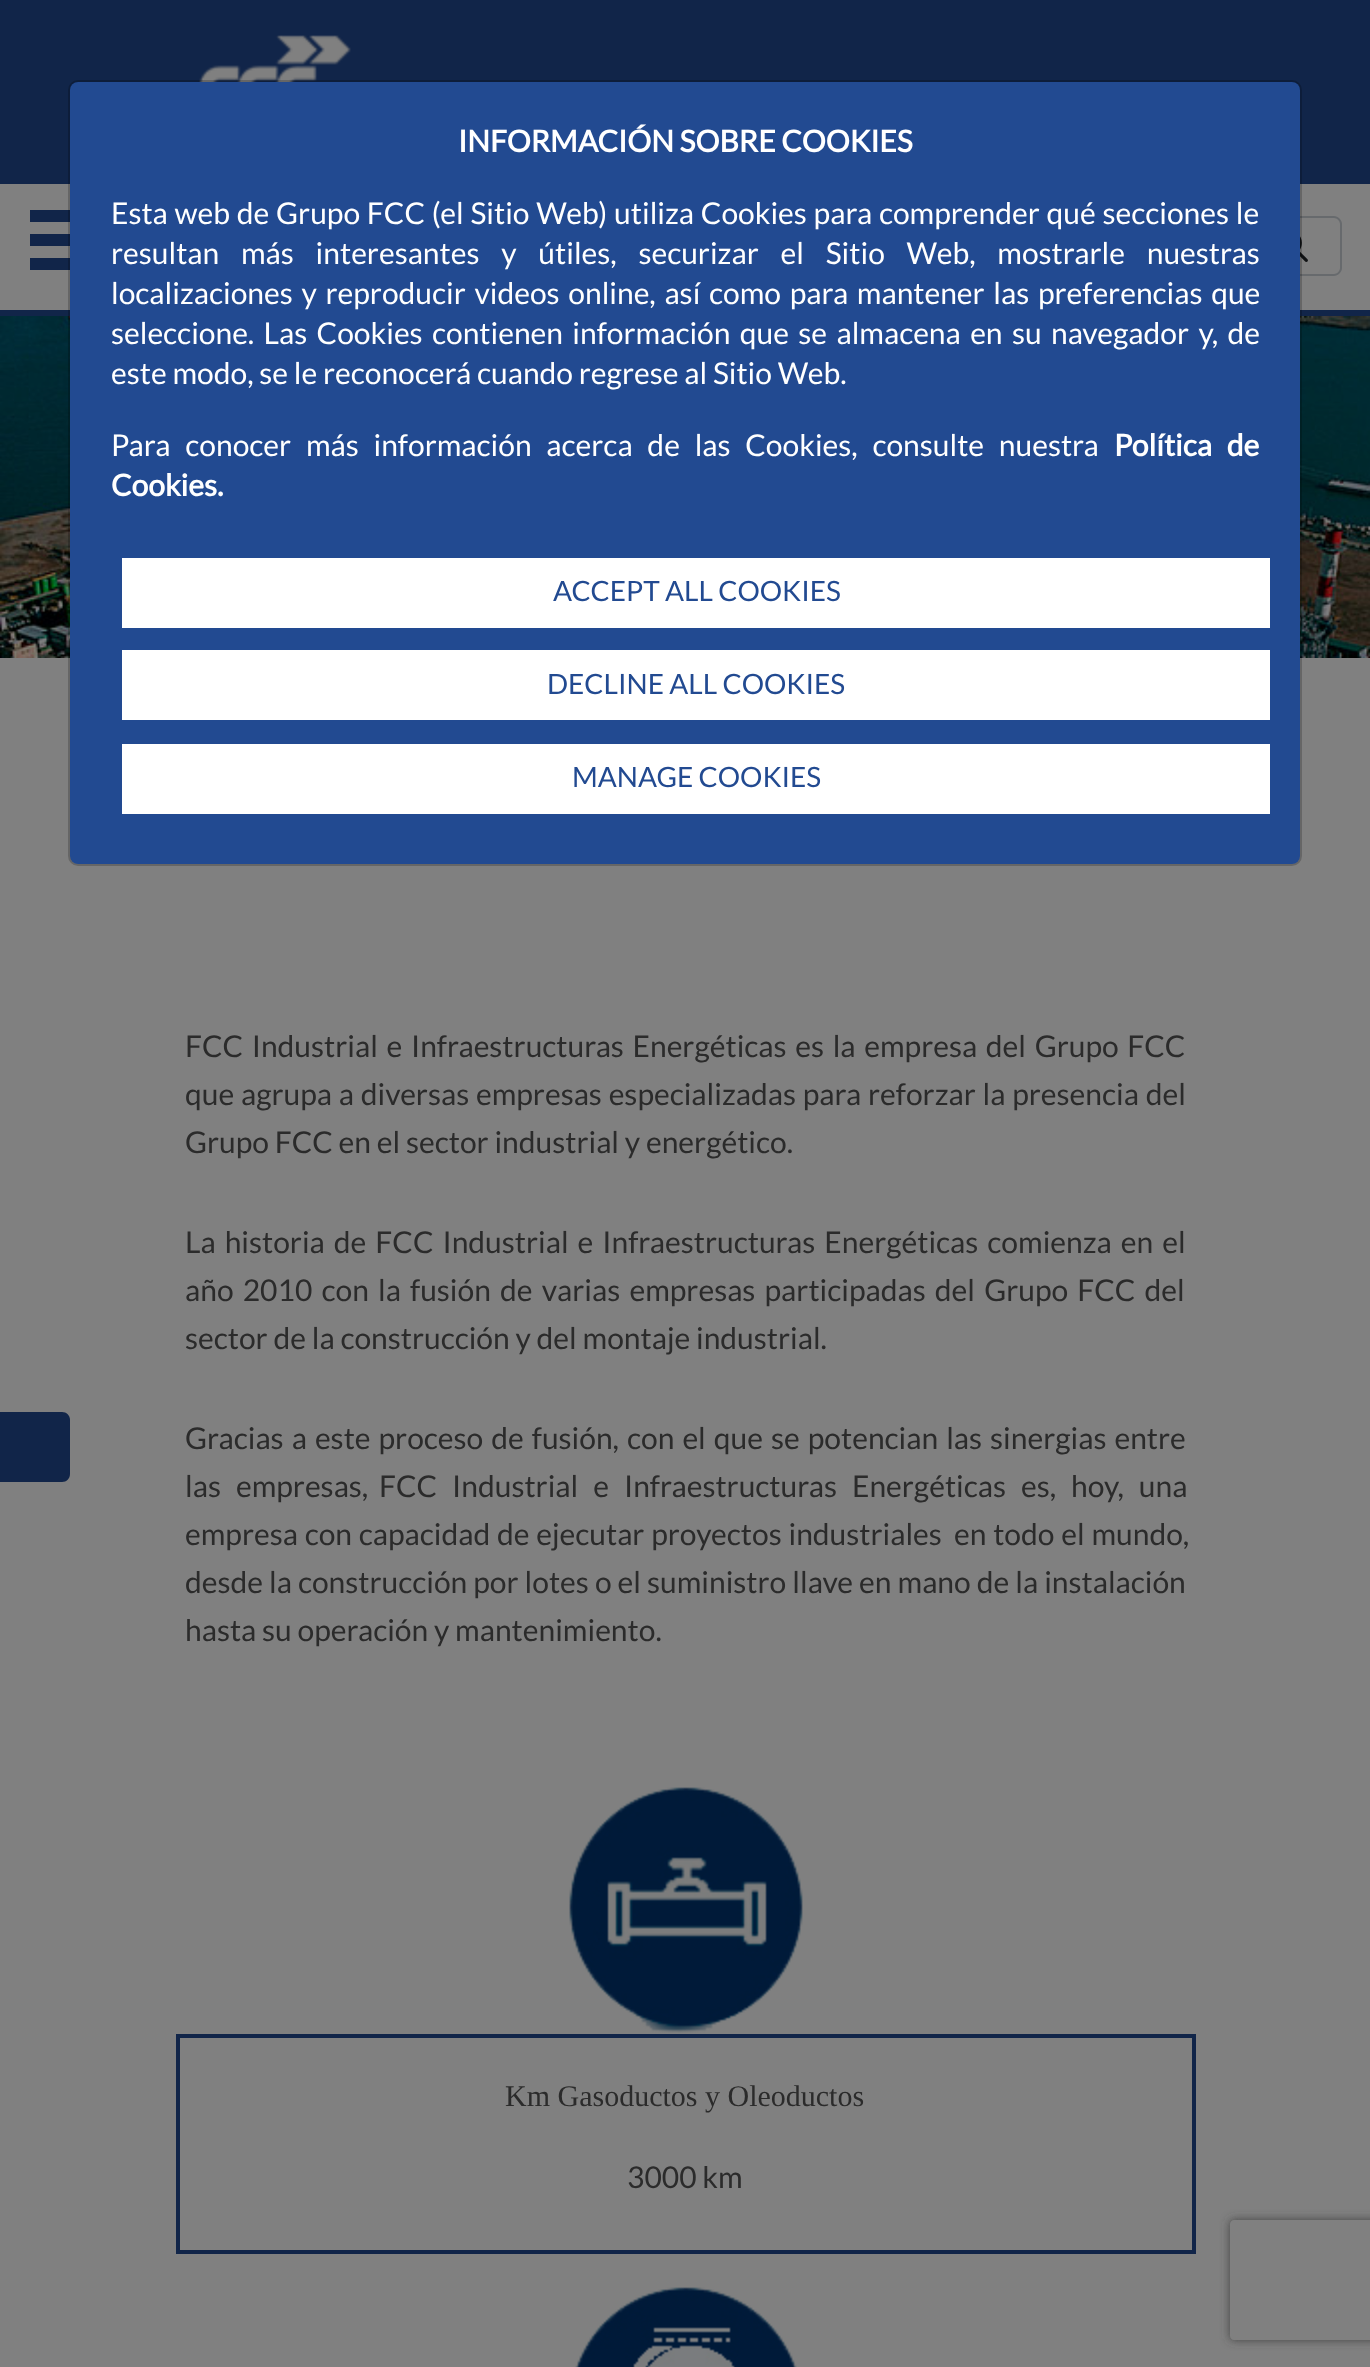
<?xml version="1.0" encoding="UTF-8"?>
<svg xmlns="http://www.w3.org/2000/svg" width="1370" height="2367">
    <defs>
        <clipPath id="clip1"><path d="M 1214 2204 H 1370 V 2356 H 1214 Z M 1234 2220 H 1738 C 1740 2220 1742 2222 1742 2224 V 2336 C 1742 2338 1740 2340 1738 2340 H 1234 C 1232 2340 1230 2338 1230 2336 V 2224 C 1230 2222 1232 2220 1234 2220 Z" clip-rule="evenodd"/></clipPath>
        <filter id="blur1" x="-50%" y="-200%" width="200%" height="500%"><feGaussianBlur stdDeviation="5"/></filter>
    </defs>
    <rect width="100%" height="100%" fill="#808080"/>
    <rect x="0" y="0" width="1370" height="184" fill="#112549"/>
    <image x="199" y="35" width="152" height="47" href="img_01.png"/>
    <rect x="0" y="310" width="1370" height="6" fill="#112549"/>
    <rect x="30" y="234" width="40" height="12" fill="#112549"/>
    <rect x="30" y="210" width="40" height="12" fill="#112549"/>
    <rect x="30" y="258" width="40" height="12" fill="#112549"/>
    <path d="M 1244 216 H 1334 C 1338 216 1342 220 1342 224 V 268 C 1342 272 1338 276 1334 276 H 1244 Z M 1244 218 H 1334 C 1337 218 1340 221 1340 224 V 268 C 1340 271 1337 274 1334 274 H 1244 Z" fill="#676A6D" fill-rule="evenodd"/>
    <image x="1300" y="236" width="8" height="26" href="img_02.png"/>
    <image x="0" y="316" width="1370" height="342" href="img_03.png"/>
    <rect x="70" y="82" width="1230" height="782" rx="8" fill="#224A91"/>
    <rect x="69" y="81" width="1232" height="784" rx="9" fill="none" stroke="#000000" stroke-opacity="0.2" stroke-width="2"/>
    <text x="458" y="152" font-family="Lato" font-size="30" font-weight="700" fill="#FFFFFF">INFORMACIÓN SOBRE COOKIES</text>
    <text font-family="Lato" font-size="30" fill="#FFFFFF">
        <tspan x="111" y="224" word-spacing="1">Esta web de Grupo FCC (el Sitio Web) utiliza Cookies para comprender qué secciones le</tspan>
        <tspan x="111" y="264" word-spacing="16">resultan más interesantes y útiles, securizar el Sitio Web, mostrarle nuestras</tspan>
        <tspan x="111" y="304" word-spacing="2.9">localizaciones y reproducir videos online, así como para mantener las preferencias que</tspan>
        <tspan x="111" y="344" word-spacing="3.6">seleccione. Las Cookies contienen información que se almacena en su navegador y, de</tspan>
        <tspan x="111" y="384">este modo, se le reconocerá cuando regrese al Sitio Web.</tspan>
    </text>
    <text x="111" y="456" word-spacing="9" font-family="Lato" font-size="30" fill="#FFFFFF">Para conocer más información acerca de las Cookies, consulte nuestra</text>
    <text x="1114" y="456" word-spacing="9" font-family="Lato" font-size="30" font-weight="700" fill="#FFFFFF">Política de</text>
    <text x="111" y="496" font-family="Lato" font-size="30" font-weight="700" fill="#FFFFFF">Cookies.</text>
    <rect x="123" y="559" width="1146" height="68" fill="#FFFFFF" stroke="#FFFFFF" stroke-width="2"/>
    <text x="553" y="601" font-family="Lato" font-size="28" fill="#224A91">ACCEPT ALL COOKIES</text>
    <rect x="123" y="651" width="1146" height="68" fill="#FFFFFF" stroke="#FFFFFF" stroke-width="2"/>
    <text x="547" y="694" font-family="Lato" font-size="28" fill="#224A91">DECLINE ALL COOKIES</text>
    <rect x="123" y="745" width="1146" height="68" fill="#FFFFFF" stroke="#FFFFFF" stroke-width="2"/>
    <text x="572" y="787" font-family="Lato" font-size="28" fill="#224A91">MANAGE COOKIES</text>
    <path d="M 0 1412 H 62 C 66.5 1412 70 1415.5 70 1420 V 1474 C 70 1478.5 66.5 1482 62 1482 H 0 Z" fill="#112549"/>
    <text font-family="Lato" font-size="30" fill="#2B2B2B">
        <tspan x="185" y="1057" word-spacing="2.9">FCC Industrial e Infraestructuras Energéticas es la empresa del Grupo FCC</tspan>
        <tspan x="185" y="1105" word-spacing="1">que agrupa a diversas empresas especializadas para reforzar la presencia del</tspan>
        <tspan x="185" y="1153">Grupo FCC en el sector industrial y energético.</tspan>
    </text>
    <text font-family="Lato" font-size="30" fill="#2B2B2B">
        <tspan x="185" y="1253" word-spacing="3.25">La historia de FCC Industrial e Infraestructuras Energéticas comienza en el</tspan>
        <tspan x="185" y="1301" word-spacing="3.4">año 2010 con la fusión de varias empresas participadas del Grupo FCC del</tspan>
        <tspan x="185" y="1349">sector de la construcción y del montaje industrial.</tspan>
    </text>
    <text font-family="Lato" font-size="30" fill="#2B2B2B">
        <tspan x="185" y="1449" word-spacing="2.25">Gracias a este proceso de fusión, con el que se potencian las sinergias entre</tspan>
        <tspan x="185" y="1497" word-spacing="9.25">las empresas,</tspan>
    </text>
    <text x="379" y="1497" word-spacing="9.25" font-family="Lato" font-size="30" fill="#2B2B2B">FCC Industrial e Infraestructuras Energéticas es, hoy, una</text>
    <text x="185" y="1545" word-spacing="1" font-family="Lato" font-size="30" fill="#2B2B2B">empresa con capacidad de ejecutar proyectos industriales</text>
    <text x="954" y="1545" word-spacing="1" font-family="Lato" font-size="30" fill="#2B2B2B">en todo el mundo,</text>
    <text font-family="Lato" font-size="30" fill="#2B2B2B">
        <tspan x="185" y="1593" word-spacing="0.25">desde la construcción por lotes o el suministro llave en mano de la instalación</tspan>
        <tspan x="185" y="1641">hasta su operación y mantenimiento.</tspan>
    </text>
    <image x="569" y="1787" width="234" height="246" href="img_04.png"/>
    <rect x="178" y="2036" width="1016" height="216" fill="none" stroke="#112549" stroke-width="4"/>
    <text x="505" y="2106" font-family="Liberation Serif" font-size="30" fill="#2B2B2B">Km Gasoductos y Oleoductos</text>
    <text x="627" y="2188" font-family="Lato" font-size="30" fill="#2B2B2B">3000 km</text>
    <image x="575" y="2287" width="222" height="80" href="img_05.png"/>
    <g clip-path="url(#clip1)">
        <rect x="1230" y="2220" width="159" height="120" rx="4" fill="#404040" filter="url(#blur1)"/>
    </g>
</svg>
